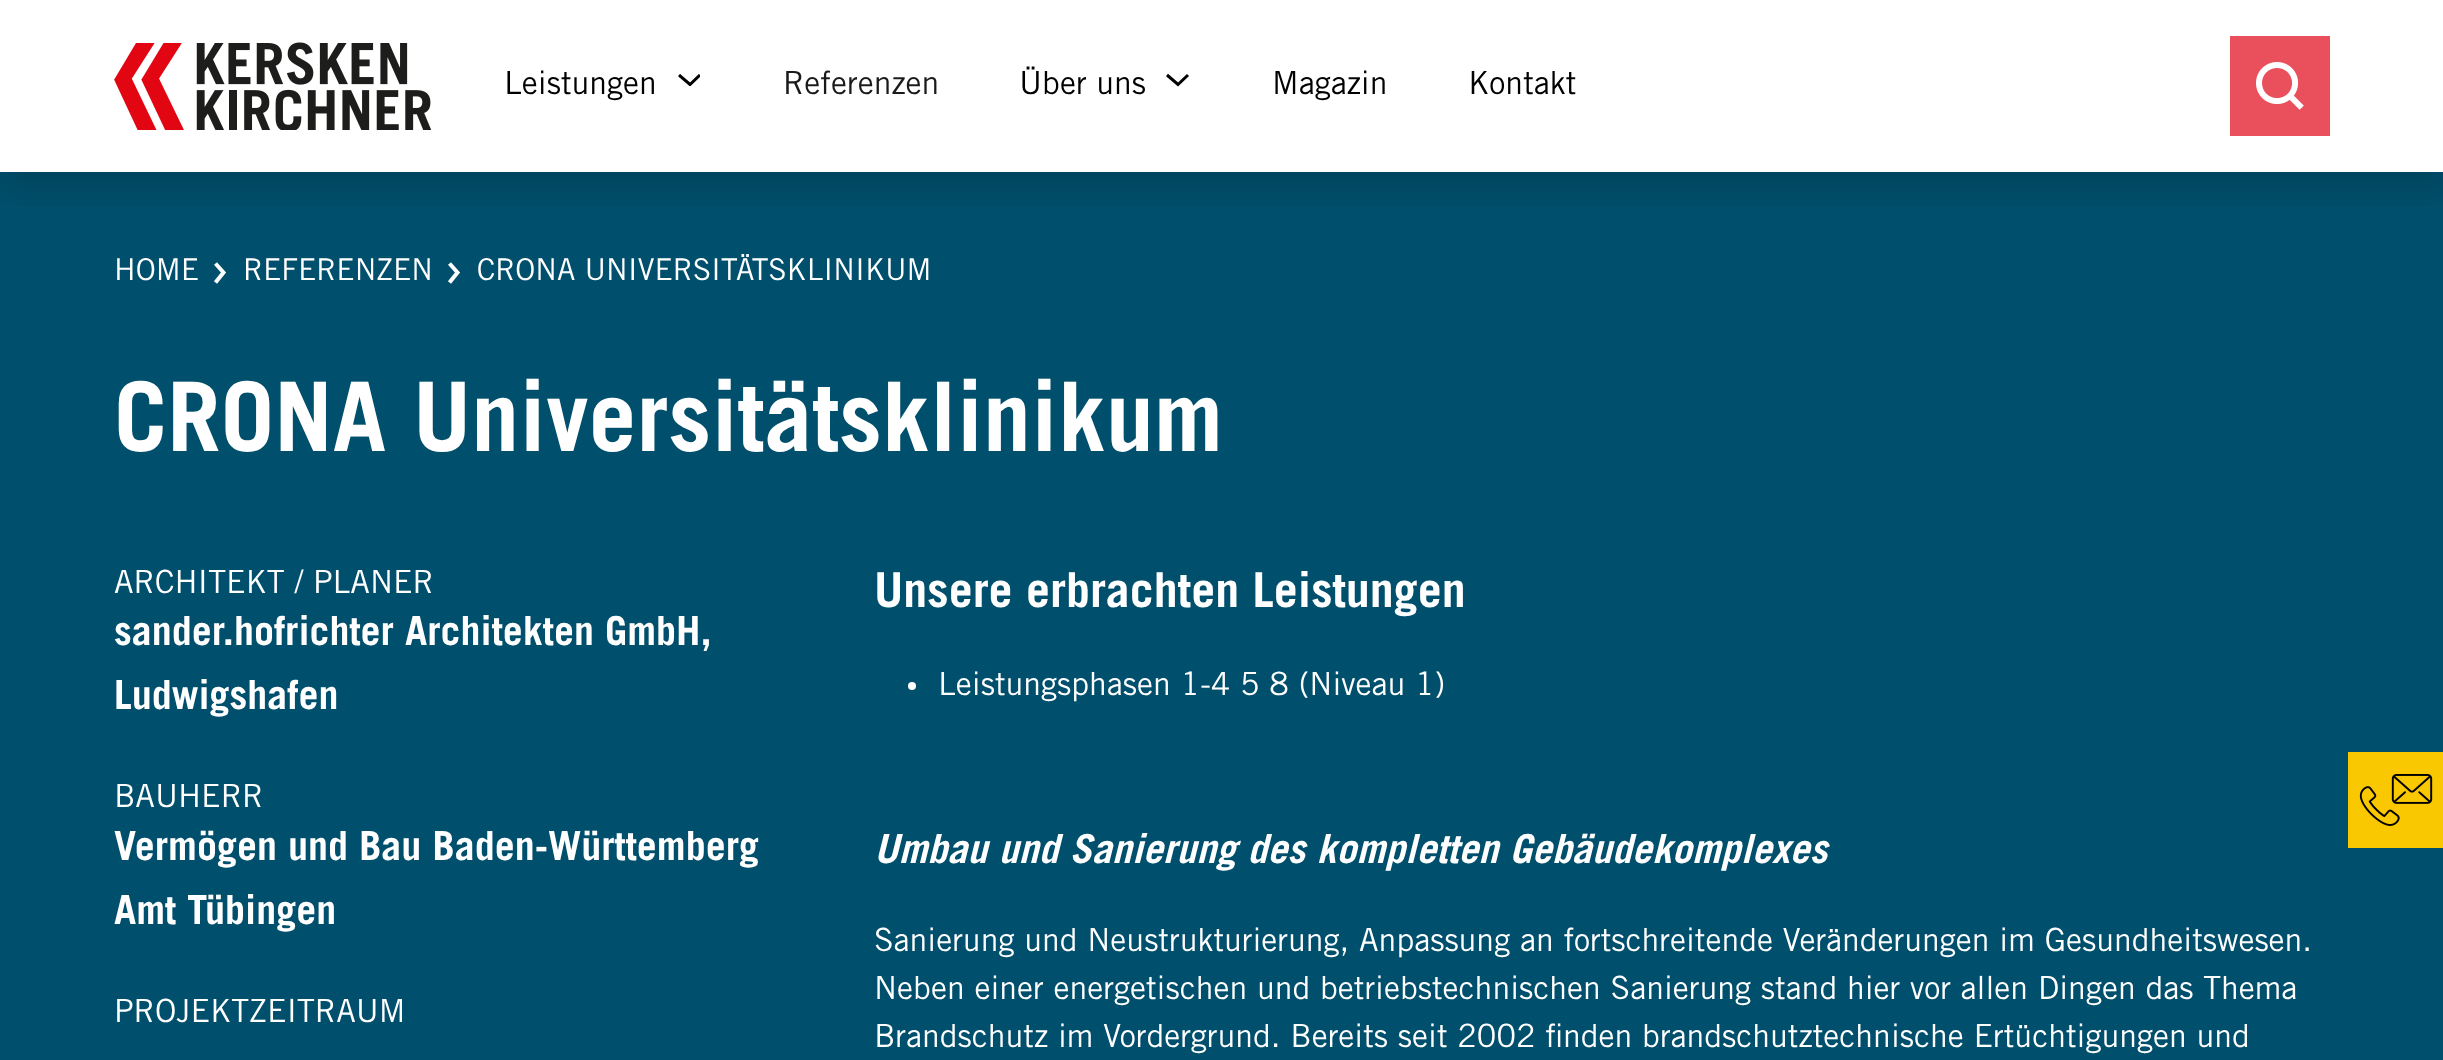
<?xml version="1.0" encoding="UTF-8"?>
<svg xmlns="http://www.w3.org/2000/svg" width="2443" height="1060">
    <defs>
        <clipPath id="clip1"><rect x="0" y="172" width="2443" height="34"/></clipPath>
        <filter id="blur1" x="-50%" y="-200%" width="200%" height="500%"><feGaussianBlur stdDeviation="16"/></filter>
        <clipPath id="clip2"><rect x="678" y="74" width="22" height="12"/></clipPath>
    </defs>
    <rect width="100%" height="100%" fill="#FFFFFF"/>
    <rect x="0" y="172" width="2443" height="888" fill="#004F6C"/>
    <g clip-path="url(#clip1)">
        <rect x="4" y="16" width="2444" height="172" fill="#000000" fill-opacity="0.15" filter="url(#blur1)"/>
    </g>
    <image x="114" y="42" width="318" height="88" href="img_01.png"/>
    <text x="504" y="94" font-family="Trade Gothic" font-size="32" fill="#000000">Leistungen</text>
    <g clip-path="url(#clip2)">
        <path d="M 700 75 L 690 84.5 L 679 75" fill="none" stroke="#000000" stroke-width="3"/>
    </g>
    <text x="783" y="94" font-family="Trade Gothic" font-size="32" fill="#1A1A1A">Referenzen</text>
    <text x="1019" y="94" font-family="Trade Gothic" font-size="32" fill="#000000">Über uns</text>
    <path d="M 1188 75 L 1178 84.5 L 1167 75" fill="none" stroke="#000000" stroke-width="3"/>
    <text x="1272" y="94" font-family="Trade Gothic" font-size="32" fill="#000000">Magazin</text>
    <text x="1468" y="94" font-family="Trade Gothic" font-size="32" fill="#000000">Kontakt</text>
    <rect x="2230" y="36" width="100" height="100" fill="#E9505B"/>
    <image x="2256" y="62" width="48" height="48" href="img_02.png"/>
    <text x="114" y="280" font-family="Trade Gothic" font-size="30" fill="#FFFFFF">HOME</text>
    <path d="M 215.5 263.5 L 223.5 272.5 L 215.5 282.5" fill="none" stroke="#FFFFFF" stroke-width="4"/>
    <text x="243" y="280" font-family="Trade Gothic" font-size="30" fill="#FFFFFF">REFERENZEN</text>
    <path d="M 449.5 263.5 L 457.5 272.5 L 449.5 282.5" fill="none" stroke="#FFFFFF" stroke-width="4"/>
    <text x="477" y="280" font-family="Trade Gothic" font-size="30" fill="#FFFFFF">CRONA UNIVERSITÄTSKLINIKUM</text>
    <text x="114" y="451" font-family="Trade Gothic" font-size="96" font-weight="700" fill="#FFFFFF">CRONA Universitätsklinikum</text>
    <text x="114" y="593" font-family="Trade Gothic" font-size="32" fill="#FFFFFF">ARCHITEKT / PLANER</text>
    <text font-family="Trade Gothic" font-size="40" font-weight="700" fill="#FFFFFF">
        <tspan x="114" y="645">sander.hofrichter Architekten GmbH,</tspan>
        <tspan x="114" y="709">Ludwigshafen</tspan>
    </text>
    <text x="114" y="807" font-family="Trade Gothic" font-size="32" fill="#FFFFFF">BAUHERR</text>
    <text font-family="Trade Gothic" font-size="40" font-weight="700" fill="#FFFFFF">
        <tspan x="114" y="860">Vermögen und Bau Baden-Württemberg</tspan>
        <tspan x="114" y="924">Amt Tübingen</tspan>
    </text>
    <text x="114" y="1022" font-family="Trade Gothic" font-size="32" fill="#FFFFFF">PROJEKTZEITRAUM</text>
    <text x="874" y="607" font-family="Trade Gothic" font-size="48" font-weight="700" fill="#FFFFFF">Unsere erbrachten Leistungen</text>
    <circle cx="912" cy="686" r="4" fill="#FFFFFF"/>
    <text x="938" y="695" font-family="Trade Gothic" font-size="32" fill="#FFFFFF">Leistungsphasen 1-4 5 8 (Niveau 1)</text>
    <text x="874" y="863" font-family="Trade Gothic" font-size="40" font-weight="700" font-style="italic" fill="#FFFFFF">Umbau und Sanierung des kompletten Gebäudekomplexes</text>
    <text font-family="Trade Gothic" font-size="32" fill="#FFFFFF">
        <tspan x="874" y="951">Sanierung und Neustrukturierung, Anpassung an fortschreitende Veränderungen im Gesundheitswesen.</tspan>
        <tspan x="874" y="999">Neben einer energetischen und betriebstechnischen Sanierung stand hier vor allen Dingen das Thema</tspan>
        <tspan x="874" y="1047">Brandschutz im Vordergrund. Bereits seit 2002 finden brandschutztechnische Ertüchtigungen und</tspan>
    </text>
    <rect x="2348" y="752" width="95" height="96" fill="#F9C800"/>
    <image x="2359" y="774" width="74" height="52" href="img_03.png"/>
</svg>
